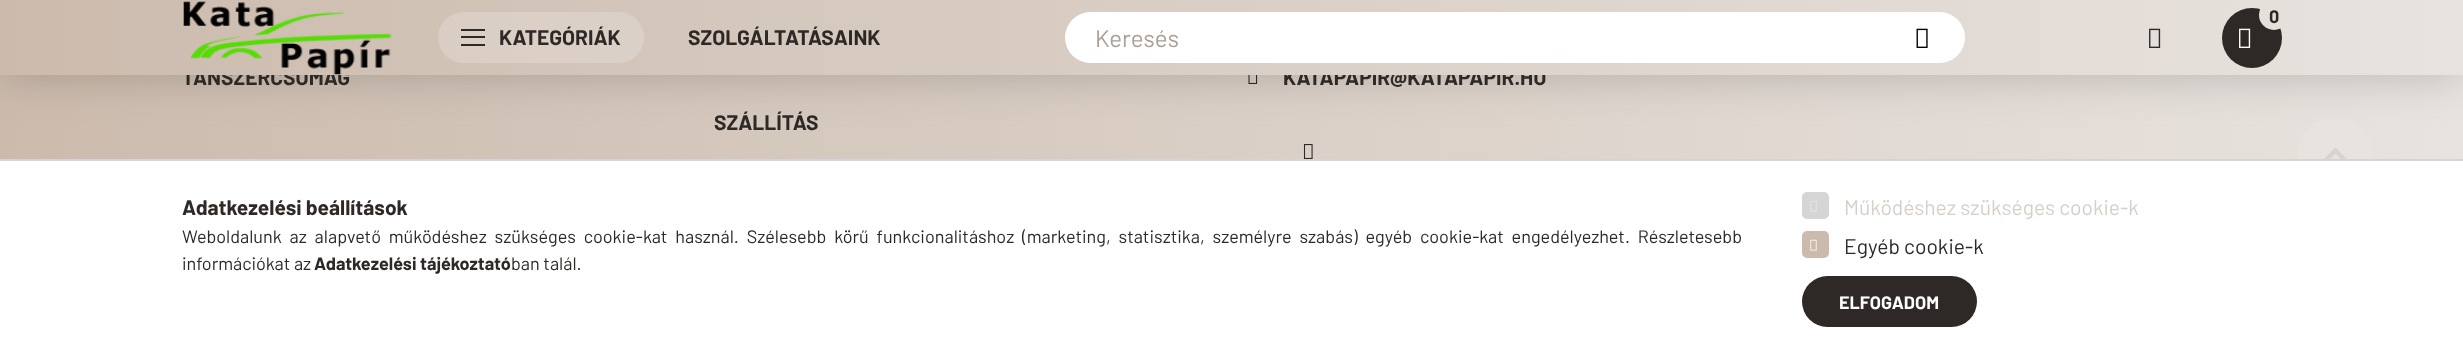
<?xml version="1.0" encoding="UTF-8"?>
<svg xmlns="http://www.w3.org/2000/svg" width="2463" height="357">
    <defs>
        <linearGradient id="g1" gradientUnits="userSpaceOnUse" x1="0" y1="179" x2="2463" y2="178"><stop offset="0" stop-color="#CCBBAD"/><stop offset="1" stop-color="#E8E3DF"/></linearGradient>
        <filter id="blur1" x="-50%" y="-200%" width="200%" height="500%"><feGaussianBlur stdDeviation="22.5"/></filter>
        <linearGradient id="g2" gradientUnits="userSpaceOnUse" x1="1802" y1="302" x2="2328" y2="302"><stop offset="0.33" stop-color="#2E2926"/><stop offset="0.67" stop-color="#CCBBAD"/></linearGradient>
    </defs>
    <rect width="100%" height="100%" fill="#FFFFFF"/>
    <rect x="0" y="75" width="2463" height="84" fill="url(#g1)"/>
    <image x="1248" y="75" width="10" height="9" href="img_05.png"/>
    <circle cx="2335.5" cy="154.5" r="37.5" fill="#E8E3DF"/>
    <rect x="0" y="0" width="2463" height="75" fill="#000000" fill-opacity="0.2" filter="url(#blur1)"/>
    <text x="182" y="85" font-family="Barlow" font-size="21" font-weight="700" fill="#2E2926">TANSZERCSOMAG</text>
    <text x="1283" y="85" font-family="Barlow" font-size="21" font-weight="700" fill="#2E2926">KATAPAPIR@KATAPAPIR.HU</text>
    <rect x="0" y="0" width="2463" height="75" fill="url(#g1)"/>
    <image x="183" y="1" width="209" height="74" href="img_01.png"/>
    <rect x="438" y="12" width="206" height="51" rx="25.5" fill="#FFFFFF" fill-opacity="0.2"/>
    <rect x="461" y="29" width="24" height="2" fill="#2E2926"/>
    <rect x="461" y="36" width="24" height="2" fill="#2E2926"/>
    <rect x="461" y="44" width="24" height="2" fill="#2E2926"/>
    <text x="499" y="45" font-family="Barlow" font-size="21" font-weight="700" fill="#2E2926">KATEGÓRIÁK</text>
    <text x="688" y="45" font-family="Barlow" font-size="21" font-weight="700" fill="#2E2926">SZOLGÁLTATÁSAINK</text>
    <circle cx="2252" cy="38" r="30" fill="#2E2926"/>
    <circle cx="2274" cy="15" r="15" fill="url(#g1)"/>
    <text x="2269" y="23" font-family="Barlow" font-size="18" font-weight="700" fill="#2E2926">0</text>
    <image x="2239" y="28" width="12" height="20" href="img_02.png"/>
    <rect x="1065" y="12" width="900" height="51" rx="25.5" fill="#FFFFFF"/>
    <text x="1095" y="47" font-family="Barlow" font-size="24" fill="#AC9E92">Keresés</text>
    <image x="1916" y="28" width="12" height="20" href="img_03.png"/>
    <image x="2149" y="28" width="12" height="20" href="img_04.png"/>
    <image x="1303" y="144" width="10" height="15" href="img_06.png"/>
    <text x="714" y="130" font-family="Barlow" font-size="21" font-weight="700" fill="#2E2926">SZÁLLÍTÁS</text>
    <path d="M 2345 163.5 L 2332.5 150.5 L 2335.5 147.5 L 2348 160 Z" fill="#D9D3CE"/>
    <path d="M 2333 162.5 V 158 H 2337.5 V 162.5 Z" fill="#E7E1DC"/>
    <path d="M 2323 160 L 2335.5 147.5 L 2338.5 150.5 L 2326 163.5 Z" fill="#D8D3CE"/>
    <rect x="2298" y="161" width="75" height="31" fill="#FFFFFF"/>
    <rect x="0" y="159" width="2463" height="2" fill="#D5D4D4"/>
    <text x="182" y="215" font-family="Barlow" font-size="21" font-weight="700" fill="#2E2926">Adatkezelési beállítások</text>
    <text font-family="Barlow" font-size="18" fill="#2E2926">
        <tspan x="182" y="243" word-spacing="4.25">Weboldalunk az alapvető működéshez szükséges cookie-kat használ. Szélesebb körű funkcionalitáshoz (marketing, statisztika, személyre szabás) egyéb cookie-kat engedélyezhet. Részletesebb</tspan>
        <tspan x="182" y="270">információkat az</tspan>
    </text>
    <text x="314" y="270" font-family="Barlow" font-size="18" font-weight="700" fill="#2E2926">Adatkezelési tájékoztató</text>
    <text x="511" y="270" font-family="Barlow" font-size="18" fill="#2E2926">ban talál.</text>
    <rect x="1803" y="193" width="25" height="25" rx="4" fill="#D5D5D5" stroke="#D5D5D5" stroke-width="2"/>
    <image x="1810" y="200" width="7" height="12" href="img_07.png"/>
    <text x="1844" y="215" font-family="Barlow" font-size="21" fill="#D6CFC9">Működéshez szükséges cookie-k</text>
    <rect x="1803" y="232" width="25" height="25" rx="4" fill="#CCBBAD" stroke="#CCBBAD" stroke-width="2"/>
    <image x="1810" y="239" width="7" height="12" href="img_08.png"/>
    <text x="1844" y="254" font-family="Barlow" font-size="21" fill="#2E2926">Egyéb cookie-k</text>
    <rect x="1802" y="276" width="175" height="51" rx="25.5" fill="url(#g2)"/>
    <text x="1839" y="309" font-family="Barlow" font-size="18" font-weight="700" fill="#FFFFFF">ELFOGADOM</text>
</svg>
